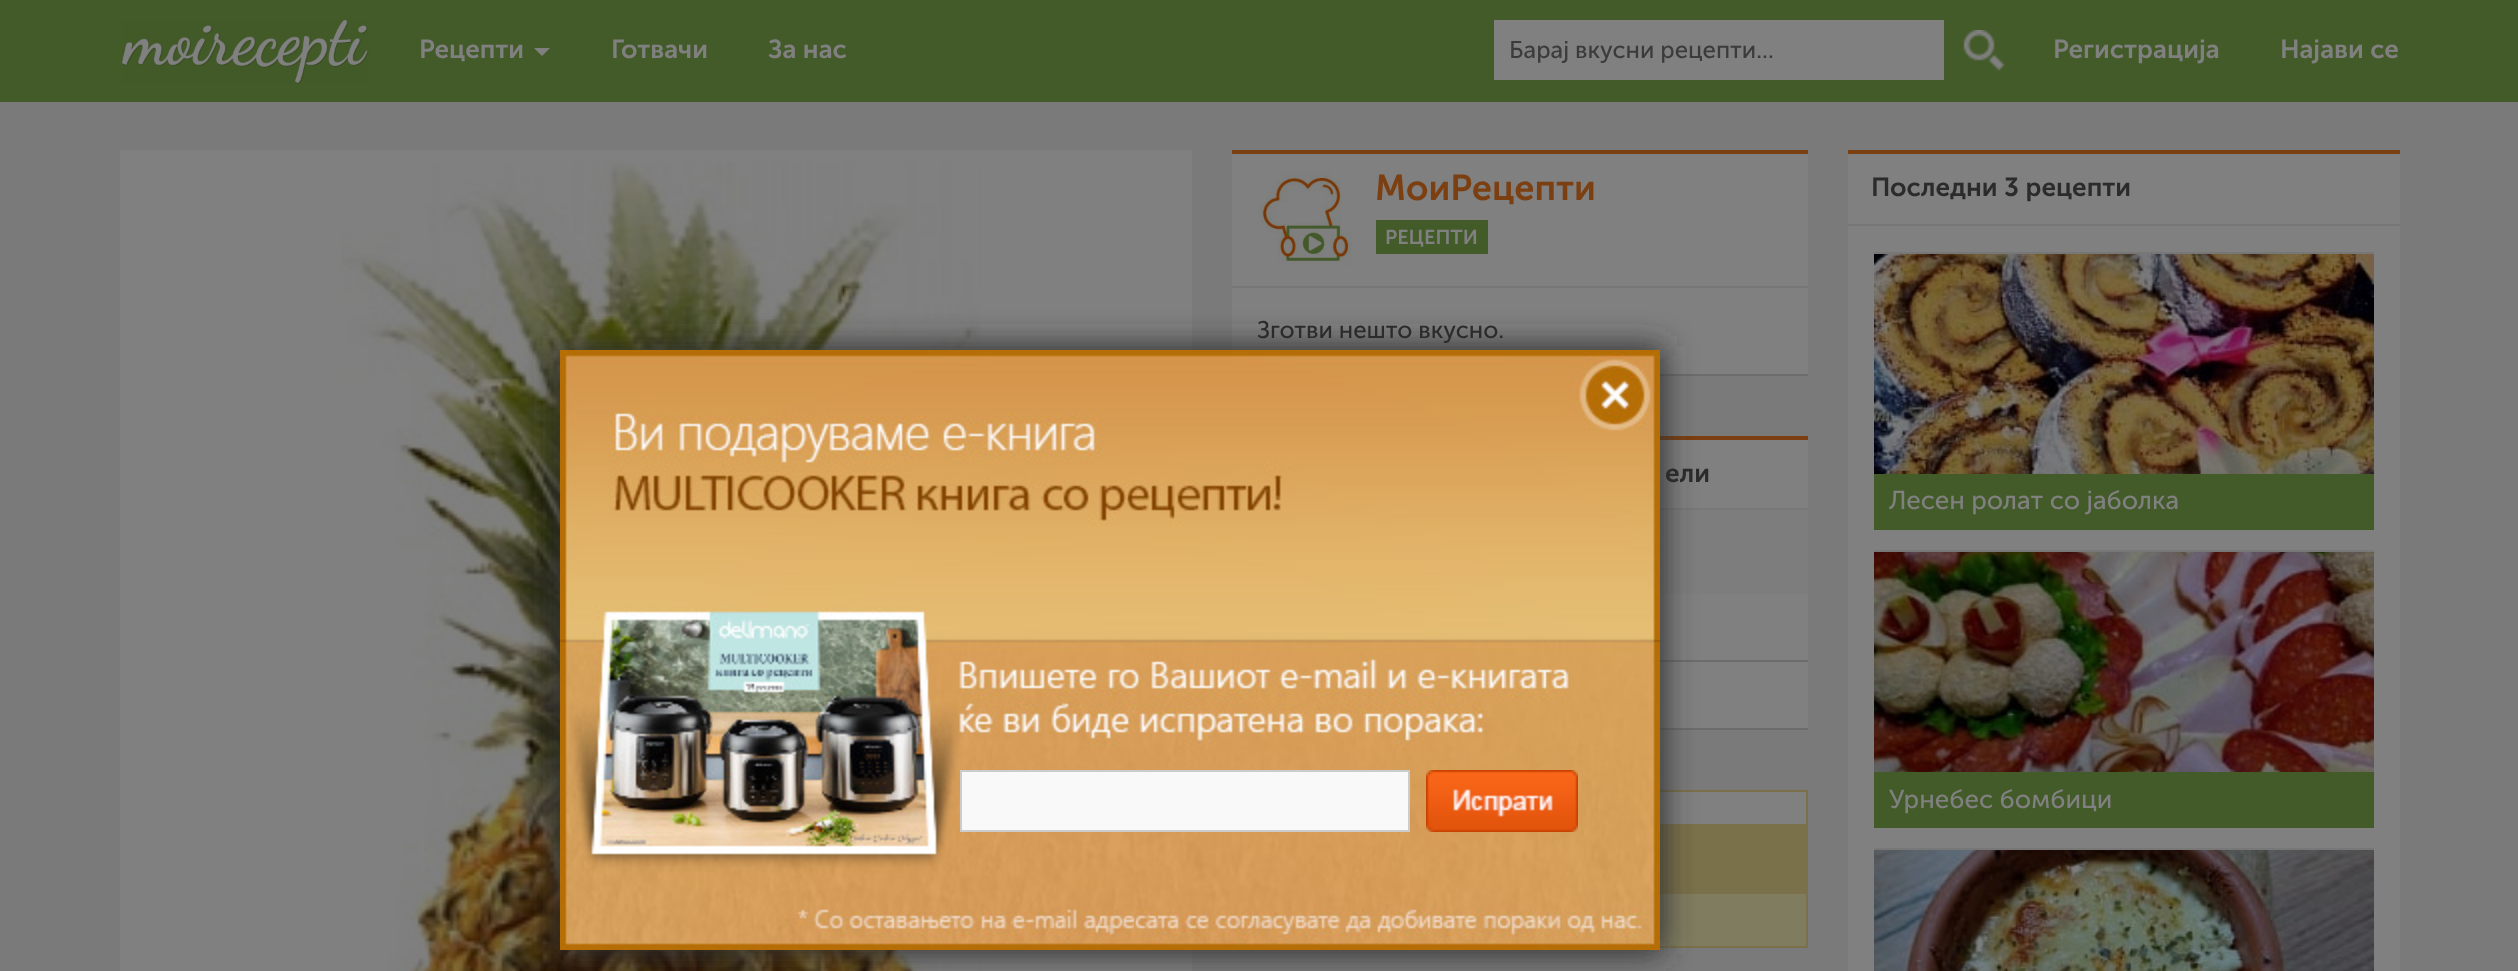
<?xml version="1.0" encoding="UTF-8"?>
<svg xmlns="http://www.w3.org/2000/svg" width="2518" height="971">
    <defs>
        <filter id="blur1" x="-50%" y="-200%" width="200%" height="500%"><feGaussianBlur stdDeviation="15"/></filter>
    </defs>
    <rect width="100%" height="100%" fill="#7A7A7A"/>
    <rect x="0" y="0" width="2518" height="102" fill="#435A29"/>
    <image x="122" y="20" width="247" height="64" href="img_01.png"/>
    <text x="419" y="58" font-family="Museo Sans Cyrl" font-size="26" font-weight="600" fill="#808080">Рецепти</text>
    <path d="M 534 48 H 550 L 542 56 Z" fill="#808080"/>
    <text x="611" y="58" font-family="Museo Sans Cyrl" font-size="26" font-weight="600" fill="#808080">Готвачи</text>
    <text x="768" y="58" font-family="Museo Sans Cyrl" font-size="26" font-weight="600" fill="#808080">За нас</text>
    <rect x="1494" y="20" width="450" height="60" fill="#808080"/>
    <text x="1509" y="58" font-family="Museo Sans Cyrl" font-size="24" fill="#3B3B3B">Барај вкусни рецепти...</text>
    <image x="1963" y="30" width="42" height="41" href="img_02.png"/>
    <text x="2053" y="58" font-family="Museo Sans Cyrl" font-size="26" font-weight="600" fill="#808080">Регистрација</text>
    <text x="2280" y="58" font-family="Museo Sans Cyrl" font-size="26" font-weight="600" fill="#808080">Најави се</text>
    <rect x="120" y="150" width="1072" height="821" fill="#808080"/>
    <image x="341" y="162" width="640" height="809" href="img_05.png"/>
    <rect x="1232" y="288" width="576" height="86" fill="#808080"/>
    <rect x="1660" y="374" width="148" height="2" fill="#6C6C6C"/>
    <rect x="1660" y="440" width="148" height="68" fill="#808080"/>
    <rect x="1660" y="436" width="148" height="4" fill="#7B3F11"/>
    <rect x="1660" y="508" width="148" height="2" fill="#777777"/>
    <rect x="1660" y="510" width="148" height="84" fill="#7D7D7D"/>
    <rect x="1660" y="594" width="148" height="66" fill="#808080"/>
    <rect x="1660" y="660" width="148" height="2" fill="#6C6C6C"/>
    <rect x="1660" y="662" width="148" height="66" fill="#808080"/>
    <rect x="1660" y="728" width="148" height="2" fill="#6C6C6C"/>
    <rect x="1660" y="792" width="146" height="32" fill="#808080"/>
    <rect x="1660" y="790" width="148" height="2" fill="#7A7049"/>
    <rect x="1660" y="824" width="148" height="70" fill="#7A7049"/>
    <rect x="1660" y="894" width="146" height="52" fill="#807C60"/>
    <rect x="1806" y="894" width="2" height="54" fill="#7A7049"/>
    <rect x="1660" y="946" width="148" height="2" fill="#7A7049"/>
    <rect x="556" y="346" width="1108" height="608" fill="#333333" filter="url(#blur1)"/>
    <image x="560" y="350" width="1100" height="600" href="img_03.png"/>
    <rect x="961" y="771" width="448" height="60" fill="#F9F9F9" stroke="#CCCCCC" stroke-width="2"/>
    <image x="1426" y="770" width="152" height="62" href="img_04.png"/>
    <rect x="1232" y="154" width="576" height="132" fill="#808080"/>
    <rect x="1232" y="150" width="576" height="4" fill="#7B3F11"/>
    <rect x="1232" y="286" width="576" height="2" fill="#777777"/>
    <image x="1256" y="170" width="96" height="96" href="img_06.png"/>
    <text x="1375" y="200" font-family="Museo Sans Cyrl" font-size="36" font-weight="600" fill="#7B3F11">МоиРецепти</text>
    <rect x="1376" y="220" width="112" height="34" fill="#435A29"/>
    <text x="1385" y="244" font-family="Museo Sans Cyrl" font-size="20" font-weight="600" fill="#808080">РЕЦЕПТИ</text>
    <text x="1257" y="338" font-family="Museo Sans Cyrl" font-size="24" fill="#2B2B2B">Зготви нешто вкусно.</text>
    <text x="1665" y="482" font-family="Museo Sans Cyrl" font-size="26" font-weight="600" fill="#2B2B2B">ели</text>
    <rect x="1806" y="790" width="2" height="34" fill="#7A7049"/>
    <rect x="1848" y="154" width="552" height="70" fill="#808080"/>
    <rect x="1848" y="150" width="552" height="4" fill="#7B3F11"/>
    <rect x="1848" y="224" width="552" height="2" fill="#777777"/>
    <text x="1871" y="196" font-family="Museo Sans Cyrl" font-size="26" font-weight="600" fill="#2B2B2B">Последни 3 рецепти</text>
    <rect x="1848" y="226" width="552" height="745" fill="#808080"/>
    <rect x="1874" y="252" width="500" height="2" fill="#777777"/>
    <image x="1874" y="254" width="500" height="220" href="img_07.png"/>
    <rect x="1874" y="474" width="500" height="56" fill="#435A29"/>
    <text x="1889" y="509" font-family="Museo Sans Cyrl" font-size="26" fill="#808080">Лесен ролат со јаболка</text>
    <rect x="1874" y="550" width="500" height="2" fill="#777777"/>
    <image x="1874" y="552" width="500" height="220" href="img_08.png"/>
    <rect x="1874" y="772" width="500" height="56" fill="#435A29"/>
    <text x="1889" y="808" font-family="Museo Sans Cyrl" font-size="26" fill="#808080">Урнебес бомбици</text>
    <rect x="1874" y="848" width="500" height="2" fill="#777777"/>
    <image x="1874" y="850" width="500" height="121" href="img_09.png"/>
</svg>
